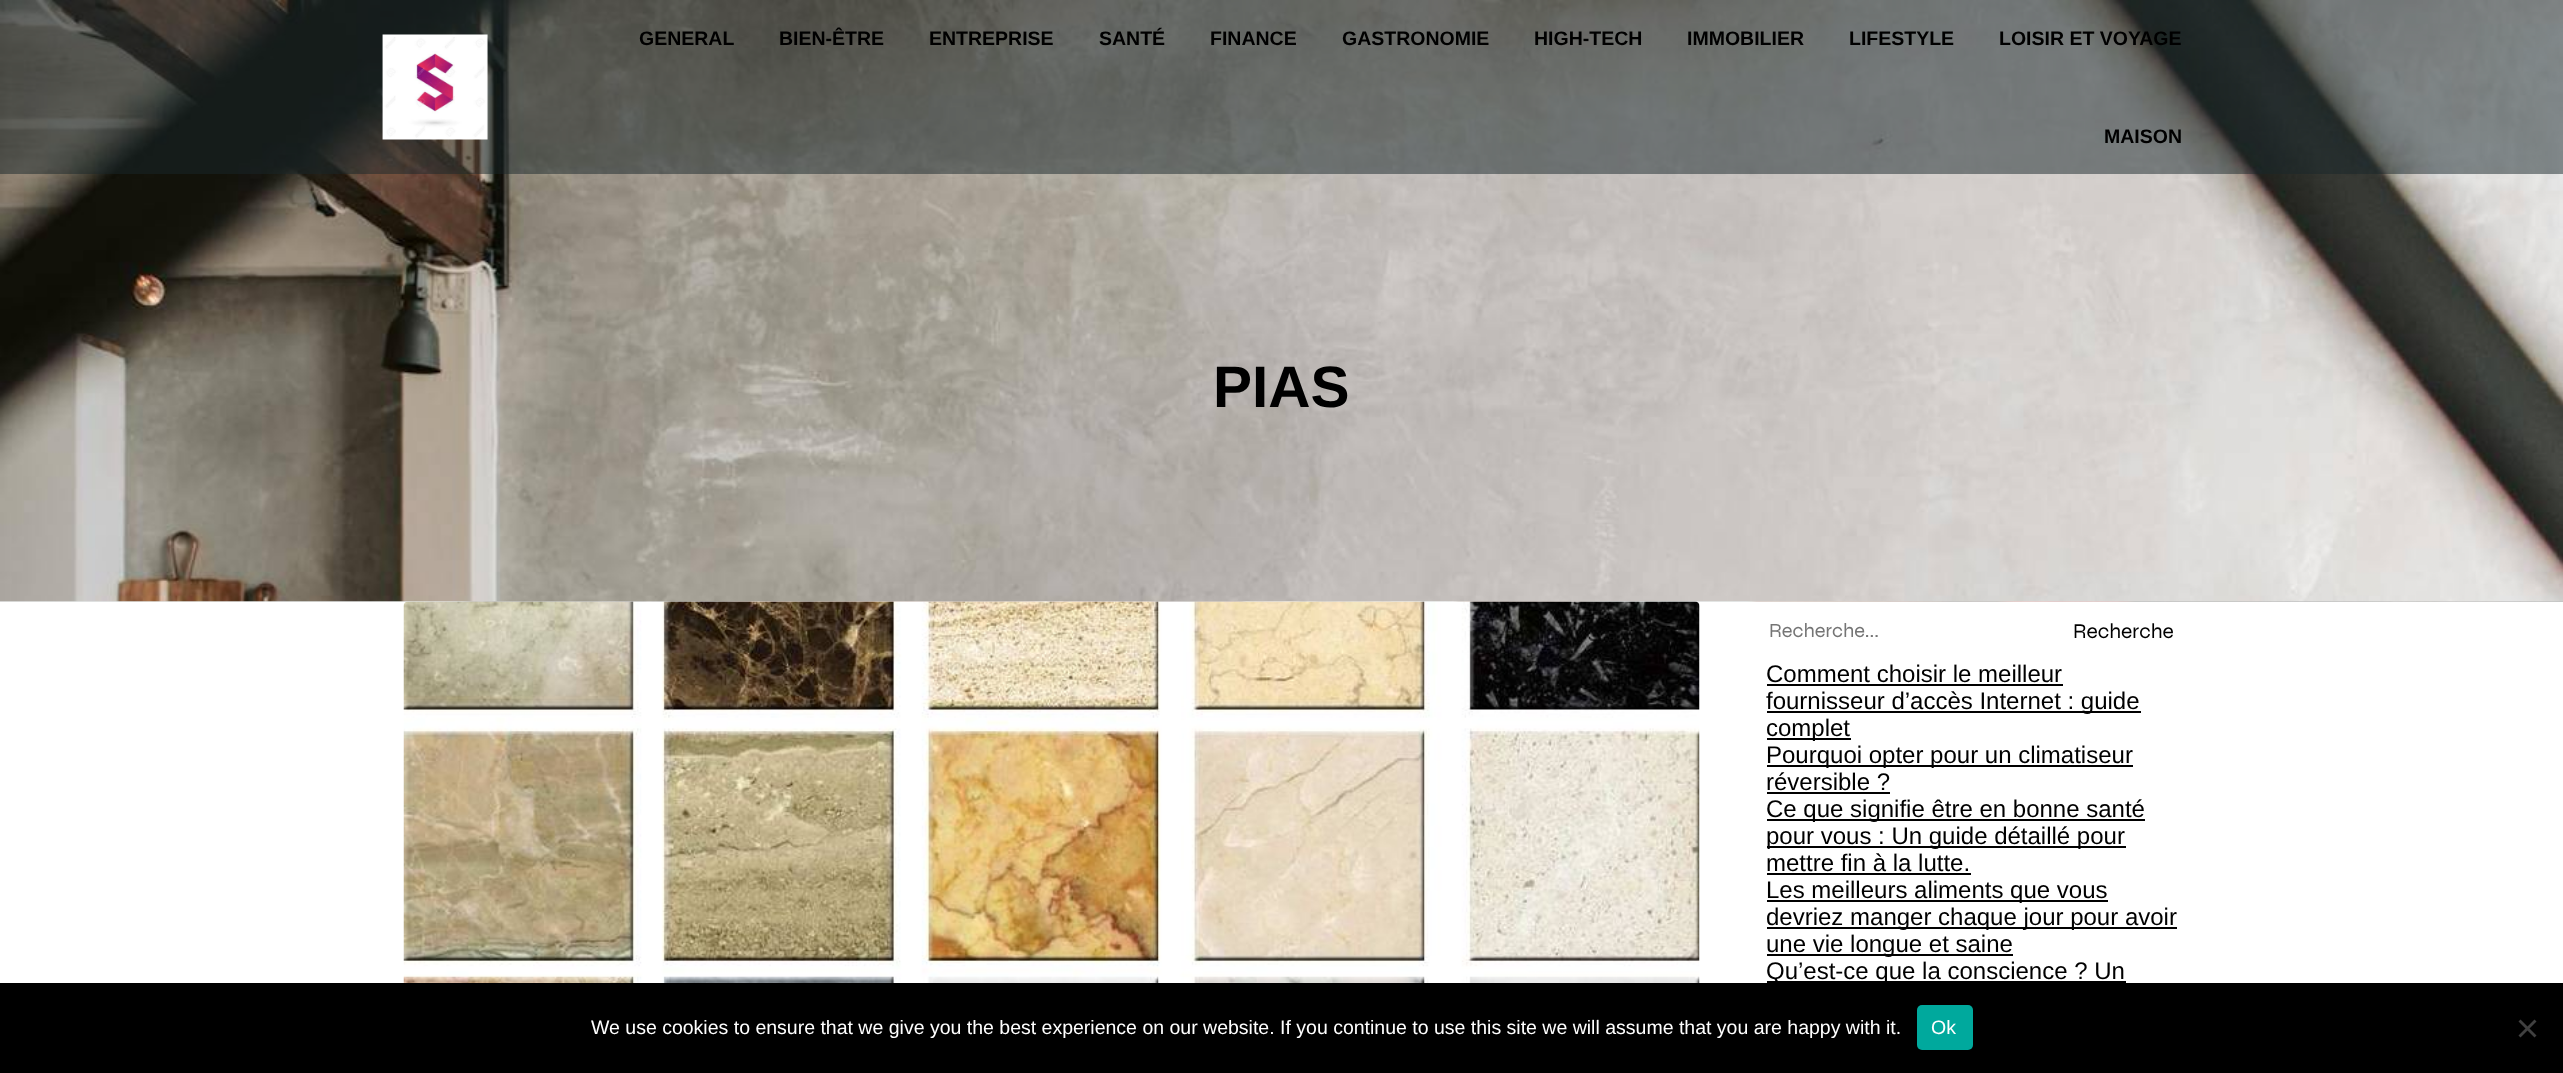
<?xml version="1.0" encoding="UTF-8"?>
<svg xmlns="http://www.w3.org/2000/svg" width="2563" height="1073">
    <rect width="100%" height="100%" fill="#FFFFFF"/>
    <image x="0" y="601" width="2563" height="1" href="img_03.png"/>
    <image x="0" y="0" width="2563" height="602" href="img_02.png"/>
    <rect x="0" y="0" width="2563" height="174" fill="#17252A" fill-opacity="0.5"/>
    <image x="382" y="34" width="106" height="106" href="img_01.png"/>
    <text x="639" y="45" font-family="Liberation Sans" font-size="19.5" font-weight="700" fill="#000000">GENERAL</text>
    <text x="779" y="45" font-family="Liberation Sans" font-size="19.5" font-weight="700" fill="#000000">BIEN-ÊTRE</text>
    <text x="929" y="45" font-family="Liberation Sans" font-size="19.5" font-weight="700" fill="#000000">ENTREPRISE</text>
    <text x="1099" y="45" font-family="Liberation Sans" font-size="19.5" font-weight="700" fill="#000000">SANTÉ</text>
    <text x="1210" y="45" font-family="Liberation Sans" font-size="19.5" font-weight="700" fill="#000000">FINANCE</text>
    <text x="1342" y="45" font-family="Liberation Sans" font-size="19.5" font-weight="700" fill="#000000">GASTRONOMIE</text>
    <text x="1534" y="45" font-family="Liberation Sans" font-size="19.5" font-weight="700" fill="#000000">HIGH-TECH</text>
    <text x="1687" y="45" font-family="Liberation Sans" font-size="19.5" font-weight="700" fill="#000000">IMMOBILIER</text>
    <text x="1849" y="45" font-family="Liberation Sans" font-size="19.5" font-weight="700" fill="#000000">LIFESTYLE</text>
    <text x="1999" y="45" font-family="Liberation Sans" font-size="19.5" font-weight="700" fill="#000000">LOISIR ET VOYAGE</text>
    <text x="2104" y="143" font-family="Liberation Sans" font-size="19.5" font-weight="700" fill="#000000">MAISON</text>
    <text x="1213" y="407" font-family="Liberation Sans" font-size="58.5" font-weight="700" fill="#000000">PIAS</text>
    <image x="403" y="601" width="1297" height="382" href="img_04.png"/>
    <text x="1769" y="637" font-family="Syne" font-size="20" fill="#757575">Recherche...</text>
    <text x="2073" y="638" font-family="Syne" font-size="21" fill="#000000">Recherche</text>
    <text x="1766" y="682" font-family="Liberation Sans" font-size="24" fill="#000000">Comment choisir le meilleur</text>
    <rect x="1767" y="684" width="296" height="2" fill="#000000"/>
    <rect x="1767" y="711" width="374" height="2" fill="#000000"/>
    <text x="1766" y="709" font-family="Liberation Sans" font-size="24" fill="#000000">fournisseur d’accès Internet : guide</text>
    <rect x="1767" y="738" width="84" height="2" fill="#000000"/>
    <text x="1766" y="736" font-family="Liberation Sans" font-size="24" fill="#000000">complet</text>
    <rect x="1767" y="765" width="366" height="2" fill="#000000"/>
    <text font-family="Liberation Sans" font-size="24" fill="#000000">
        <tspan x="1766" y="763">Pourquoi opter pour un climatiseur</tspan>
        <tspan x="1766" y="790">réversible ?</tspan>
    </text>
    <rect x="1767" y="792" width="123" height="2" fill="#000000"/>
    <rect x="1767" y="819" width="378" height="2" fill="#000000"/>
    <text x="1766" y="817" font-family="Liberation Sans" font-size="24" fill="#000000">Ce que signifie être en bonne santé</text>
    <rect x="1767" y="846" width="359" height="2" fill="#000000"/>
    <text font-family="Liberation Sans" font-size="24" fill="#000000">
        <tspan x="1766" y="844">pour vous : Un guide détaillé pour</tspan>
        <tspan x="1766" y="871">mettre fin à la lutte.</tspan>
    </text>
    <rect x="1767" y="873" width="204" height="2" fill="#000000"/>
    <rect x="1767" y="900" width="341" height="2" fill="#000000"/>
    <text x="1766" y="898" font-family="Liberation Sans" font-size="24" fill="#000000">Les meilleurs aliments que vous</text>
    <rect x="1767" y="927" width="410" height="2" fill="#000000"/>
    <text x="1766" y="925" font-family="Liberation Sans" font-size="24" fill="#000000">devriez manger chaque jour pour avoir</text>
    <rect x="1767" y="954" width="246" height="2" fill="#000000"/>
    <text x="1766" y="952" font-family="Liberation Sans" font-size="24" fill="#000000">une vie longue et saine</text>
    <rect x="1767" y="981" width="359" height="2" fill="#000000"/>
    <text x="1766" y="979" font-family="Liberation Sans" font-size="24" fill="#000000">Qu’est-ce que la conscience ? Un</text>
    <rect x="0" y="983" width="2563" height="90" fill="#000000"/>
    <text x="591" y="1034" font-family="Liberation Sans" font-size="19.5" fill="#FFFFFF">We use cookies to ensure that we give you the best experience on our website. If you continue to use this site we will assume that you are happy with it.</text>
    <rect x="1917" y="1005" width="56" height="45" rx="5" fill="#00A99D"/>
    <text x="1931" y="1034" font-family="Liberation Sans" font-size="19.5" fill="#FFFFFF">Ok</text>
    <path d="M 2534.5 1019.5 L 2536.5 1021.5 L 2520.5 1037.5 L 2518.5 1035.5 Z" fill="#404040"/>
    <path d="M 2518.5 1021.5 L 2520.5 1019.5 L 2536.5 1035.5 L 2534.5 1037.5 Z" fill="#404040"/>
</svg>
